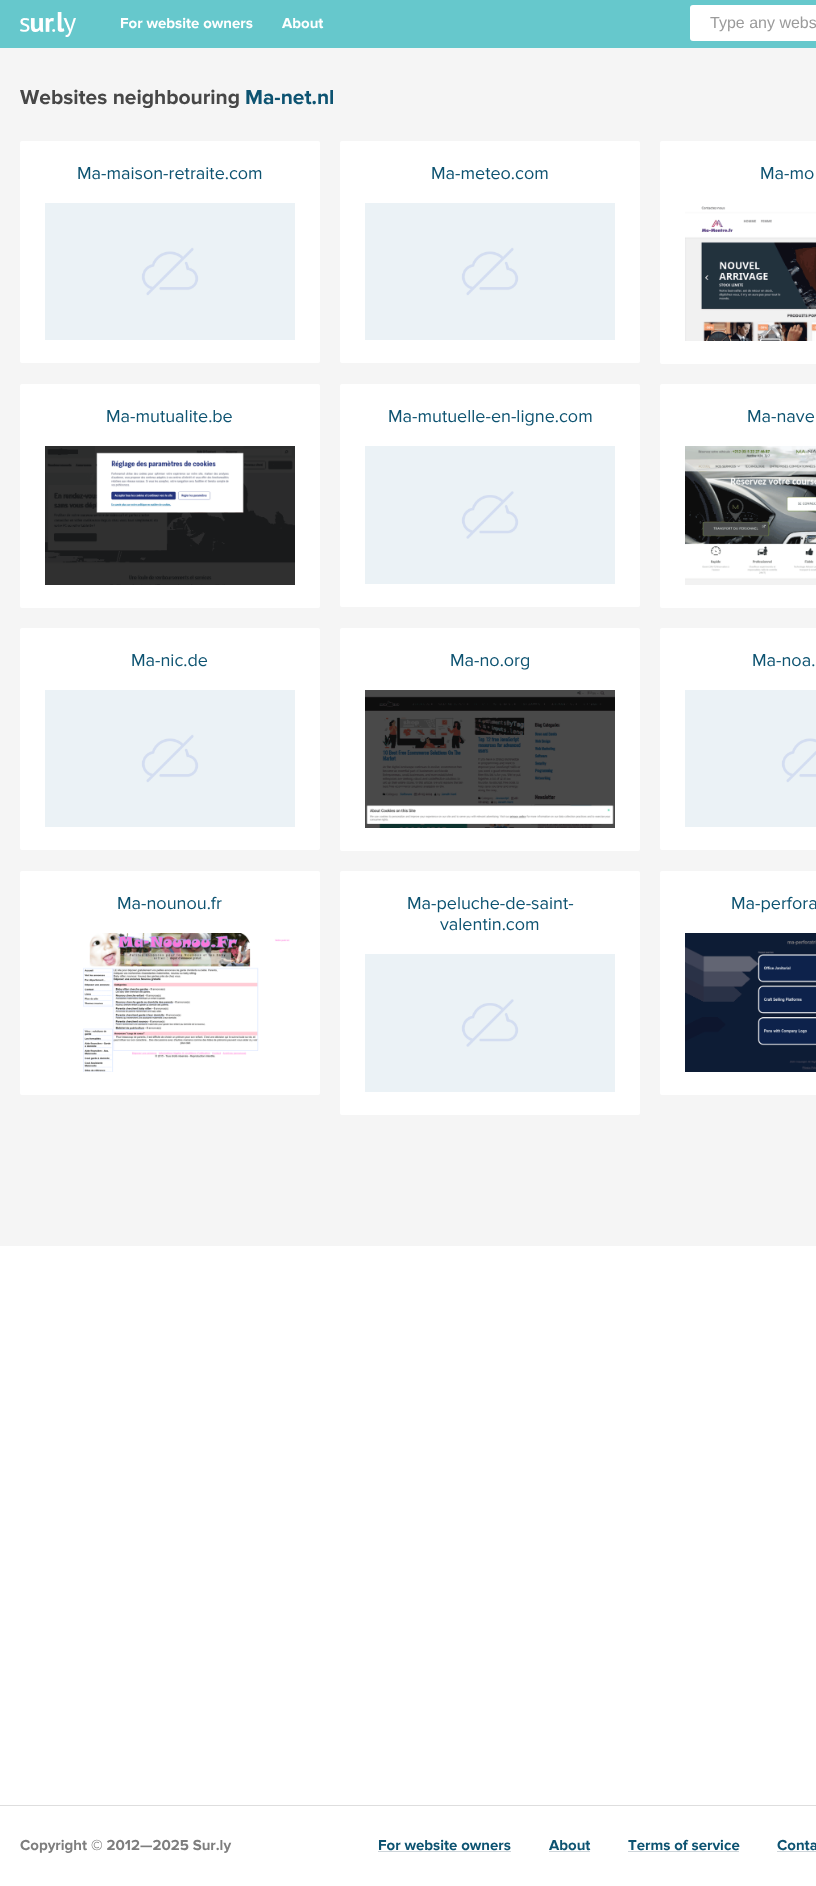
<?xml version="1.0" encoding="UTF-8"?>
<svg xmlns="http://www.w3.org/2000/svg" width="816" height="1886">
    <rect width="100%" height="100%" fill="#FFFFFF"/>
    <rect x="0" y="0" width="816" height="48" fill="#66C8CC"/>
    <image x="20" y="12" width="56" height="25" href="img_01.png"/>
    <text x="120" y="28" font-family="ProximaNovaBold" font-size="15" font-weight="700" fill="#FFFFFF">For website owners</text>
    <text x="282" y="28" font-family="ProximaNovaBold" font-size="15" font-weight="700" fill="#FFFFFF">About</text>
    <rect x="690" y="5" width="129" height="36" rx="3" fill="#FFFFFF"/>
    <text x="710" y="28" font-family="Liberation Sans" font-size="16" fill="#9B9B9B">Type any webs</text>
    <rect x="0" y="48" width="816" height="1198" fill="#F5F5F5"/>
    <text x="20" y="104" font-family="ProximaNovaBold" font-size="21" font-weight="700" fill="#474747">Websites neighbouring</text>
    <text x="245" y="104" font-family="ProximaNovaBold" font-size="21" font-weight="700" fill="#0D5371">Ma-net.nl</text>
    <rect x="20" y="141" width="300" height="222" rx="2" fill="#FFFFFF"/>
    <text x="77" y="179" font-family="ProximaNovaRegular" font-size="18" fill="#0D5371">Ma-maison-retraite.com</text>
    <image x="45" y="203" width="250" height="137" href="img_02.png"/>
    <rect x="340" y="141" width="300" height="222" rx="2" fill="#FFFFFF"/>
    <text x="431" y="179" font-family="ProximaNovaRegular" font-size="18" fill="#0D5371">Ma-meteo.com</text>
    <image x="365" y="203" width="250" height="137" href="img_02.png"/>
    <rect x="660" y="141" width="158" height="223" rx="2" fill="#FFFFFF"/>
    <text x="760" y="179" font-family="ProximaNovaRegular" font-size="18" fill="#0D5371">Ma-mo</text>
    <image x="685" y="206" width="131" height="135" href="img_03.png"/>
    <rect x="20" y="384" width="300" height="224" rx="2" fill="#FFFFFF"/>
    <text x="106" y="422" font-family="ProximaNovaRegular" font-size="18" fill="#0D5371">Ma-mutualite.be</text>
    <image x="45" y="446" width="250" height="139" href="img_04.png"/>
    <rect x="340" y="384" width="300" height="223" rx="2" fill="#FFFFFF"/>
    <text x="388" y="422" font-family="ProximaNovaRegular" font-size="18" fill="#0D5371">Ma-mutuelle-en-ligne.com</text>
    <image x="365" y="446" width="250" height="138" href="img_05.png"/>
    <rect x="660" y="384" width="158" height="224" rx="2" fill="#FFFFFF"/>
    <text x="747" y="422" font-family="ProximaNovaRegular" font-size="18" fill="#0D5371">Ma-nave</text>
    <image x="685" y="446" width="131" height="139" href="img_06.png"/>
    <rect x="20" y="628" width="300" height="222" rx="2" fill="#FFFFFF"/>
    <text x="131" y="666" font-family="ProximaNovaRegular" font-size="18" fill="#0D5371">Ma-nic.de</text>
    <image x="45" y="690" width="250" height="137" href="img_02.png"/>
    <rect x="340" y="628" width="300" height="223" rx="2" fill="#FFFFFF"/>
    <text x="450" y="666" font-family="ProximaNovaRegular" font-size="18" fill="#0D5371">Ma-no.org</text>
    <image x="365" y="690" width="250" height="138" href="img_07.png"/>
    <rect x="660" y="628" width="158" height="222" rx="2" fill="#FFFFFF"/>
    <text x="752" y="666" font-family="ProximaNovaRegular" font-size="18" fill="#0D5371">Ma-noa.</text>
    <image x="685" y="690" width="131" height="137" href="img_08.png"/>
    <rect x="20" y="871" width="300" height="224" rx="2" fill="#FFFFFF"/>
    <text x="117" y="909" font-family="ProximaNovaRegular" font-size="18" fill="#0D5371">Ma-nounou.fr</text>
    <image x="83" y="933" width="207" height="139" href="img_09.png"/>
    <rect x="340" y="871" width="300" height="244" rx="2" fill="#FFFFFF"/>
    <text x="407" y="909" font-family="ProximaNovaRegular" font-size="18" fill="#0D5371">Ma-peluche-de-saint-</text>
    <text x="440" y="930" font-family="ProximaNovaRegular" font-size="18" fill="#0D5371">valentin.com</text>
    <image x="365" y="954" width="250" height="138" href="img_05.png"/>
    <rect x="660" y="871" width="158" height="224" rx="2" fill="#FFFFFF"/>
    <text x="731" y="909" font-family="ProximaNovaRegular" font-size="18" fill="#0D5371">Ma-perfora</text>
    <image x="685" y="933" width="131" height="139" href="img_10.png"/>
    <rect x="0" y="1805" width="816" height="1" fill="#DEDEDE"/>
    <text x="20" y="1850" font-family="ProximaNovaBold" font-size="15" font-weight="700" fill="#7E7E7E">Copyright © 2012—2025 Sur.ly</text>
    <text x="378" y="1850" font-family="ProximaNovaBold" font-size="15" font-weight="700" fill="#0D5371">For website owners</text>
    <rect x="378" y="1851" width="133" height="1" fill="#CDD4D9"/>
    <text x="549" y="1850" font-family="ProximaNovaBold" font-size="15" font-weight="700" fill="#0D5371">About</text>
    <rect x="549" y="1851" width="41" height="1" fill="#CDD4D9"/>
    <text x="628" y="1850" font-family="ProximaNovaBold" font-size="15" font-weight="700" fill="#0D5371">Terms of service</text>
    <rect x="628" y="1851" width="111" height="1" fill="#CDD4D9"/>
    <text x="777" y="1850" font-family="ProximaNovaBold" font-size="15" font-weight="700" fill="#0D5371">Conta</text>
    <rect x="777" y="1851" width="39" height="1" fill="#CDD4D9"/>
</svg>
